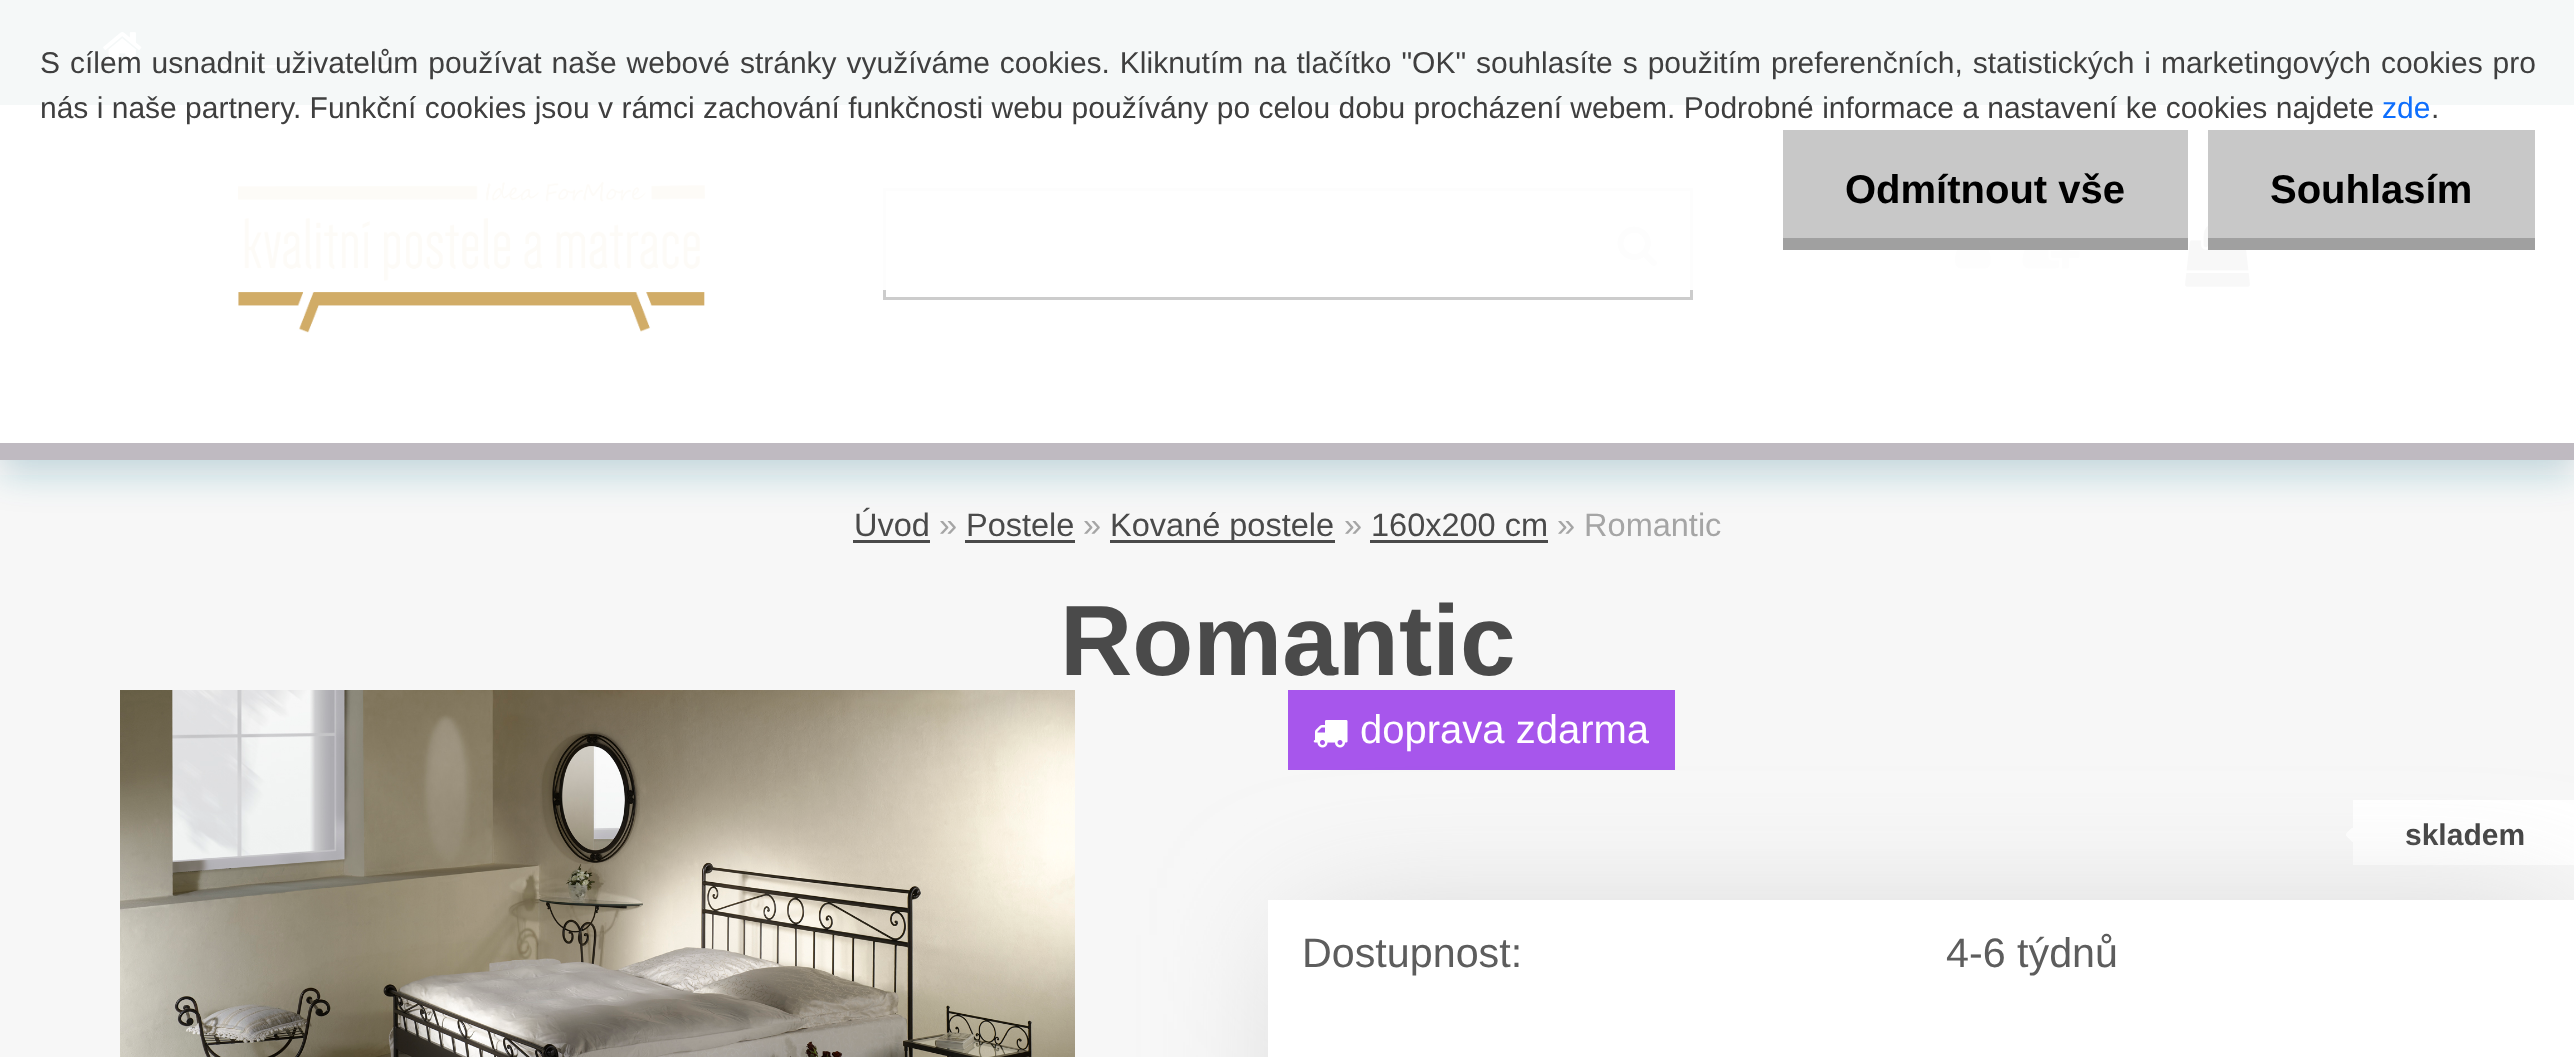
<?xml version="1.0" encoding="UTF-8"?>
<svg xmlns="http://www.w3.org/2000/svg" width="2574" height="1057">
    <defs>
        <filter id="blur1" x="-50%" y="-200%" width="200%" height="500%"><feGaussianBlur stdDeviation="17.5"/></filter>
        <filter id="blur2" x="-50%" y="-200%" width="200%" height="500%"><feGaussianBlur stdDeviation="71"/></filter>
    </defs>
    <rect width="100%" height="100%" fill="#F7F7F7"/>
    <rect x="0" y="15" width="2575" height="460" fill="#21768D" fill-opacity="0.25" filter="url(#blur1)"/>
    <rect x="0" y="105" width="2574" height="338" fill="#FFFFFF"/>
    <rect x="0" y="0" width="2574" height="105" fill="#387675"/>
    <image x="103" y="32" width="39" height="31" href="img_01.png"/>
    <rect x="218" y="65" width="195" height="3" fill="#FFFFFF"/>
    <image x="238" y="181" width="467" height="152" href="img_02.png"/>
    <rect x="884.5" y="189.5" width="807" height="109" fill="none" stroke="#CCCCCC" stroke-width="3"/>
    <image x="1617" y="226" width="40" height="40" href="img_03.png"/>
    <image x="1955" y="250" width="36" height="19" href="img_04.png"/>
    <image x="2022" y="250" width="58" height="19" href="img_05.png"/>
    <image x="2185" y="225" width="65" height="62" href="img_06.png"/>
    <rect x="0" y="0" width="2574" height="290" fill="#FFFFFF" fill-opacity="0.95"/>
    <text font-family="Liberation Sans" font-size="30" fill="#3F3F3F">
        <tspan x="40" y="73" word-spacing="1.6">S cílem usnadnit uživatelům používat naše webové stránky využíváme cookies. Kliknutím na tlačítko "OK" souhlasíte s použitím preferenčních, statistických i marketingových cookies pro</tspan>
        <tspan x="40" y="118">nás i naše partnery. Funkční cookies jsou v rámci zachování funkčnosti webu používány po celou dobu procházení webem. Podrobné informace a nastavení ke cookies najdete</tspan>
    </text>
    <text x="2382" y="118" font-family="Liberation Sans" font-size="30" fill="#0D6EFD">zde</text>
    <text x="2431" y="118" font-family="Liberation Sans" font-size="30" fill="#3F3F3F">.</text>
    <rect x="1783" y="130" width="405" height="108" fill="#C8C8C8"/>
    <rect x="1783" y="238" width="405" height="12" fill="#A0A0A0"/>
    <text x="1845" y="203" font-family="Liberation Sans" font-size="40" font-weight="700" fill="#000000">Odmítnout vše</text>
    <rect x="2208" y="130" width="327" height="108" fill="#C8C8C8"/>
    <rect x="2208" y="238" width="327" height="12" fill="#A0A0A0"/>
    <text x="2270" y="203" font-family="Liberation Sans" font-size="40" font-weight="700" fill="#000000">Souhlasím</text>
    <rect x="0" y="443" width="2574" height="17" fill="#BFBAC1"/>
    <text x="854" y="536" font-family="Liberation Sans" font-size="32.5" fill="#4A4A4A">Úvod</text>
    <rect x="853" y="540" width="77" height="3" fill="#4A4A4A"/>
    <text x="939" y="536" font-family="Liberation Sans" font-size="32.5" fill="#A5A5A5">»</text>
    <text x="966" y="536" font-family="Liberation Sans" font-size="32.5" fill="#4A4A4A">Postele</text>
    <rect x="965" y="540" width="110" height="3" fill="#4A4A4A"/>
    <text x="1083" y="536" font-family="Liberation Sans" font-size="32.5" fill="#A5A5A5">»</text>
    <rect x="1110" y="540" width="225" height="3" fill="#4A4A4A"/>
    <text x="1110" y="536" font-family="Liberation Sans" font-size="32.5" fill="#4A4A4A">Kované postele</text>
    <text x="1344" y="536" font-family="Liberation Sans" font-size="32.5" fill="#A5A5A5">»</text>
    <text x="1371" y="536" font-family="Liberation Sans" font-size="32.5" fill="#4A4A4A">160x200 cm</text>
    <rect x="1370" y="540" width="178" height="3" fill="#4A4A4A"/>
    <text x="1557" y="536" font-family="Liberation Sans" font-size="32.5" fill="#A5A5A5">» Romantic</text>
    <text x="1060" y="675" font-family="Liberation Sans" font-size="100" font-weight="700" fill="#4A4A4A">Romantic</text>
    <image x="120" y="690" width="955" height="367" href="img_07.png"/>
    <rect x="1288" y="690" width="387" height="80" fill="#A756EC"/>
    <image x="1313" y="720" width="35" height="28" href="img_08.png"/>
    <text x="1360" y="743" font-family="Liberation Sans" font-size="40" fill="#FFFFFF">doprava zdarma</text>
    <rect x="2353" y="800" width="221" height="65" fill="#FFFFFF"/>
    <image x="2346" y="828" width="7" height="14" href="img_09.png"/>
    <text x="2405" y="845" font-family="Liberation Sans" font-size="30" font-weight="700" fill="#3F3F3F">skladem</text>
    <rect x="1305" y="935" width="1253" height="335" fill="#CCCCCC" filter="url(#blur2)"/>
    <rect x="1268" y="900" width="1306" height="157" fill="#FFFFFF"/>
    <text x="1302" y="967" font-family="Liberation Sans" font-size="41.25" fill="#5D5D5D">Dostupnost:</text>
    <text x="1946" y="967" font-family="Liberation Sans" font-size="41.25" fill="#5D5D5D">4-6 týdnů</text>
</svg>
